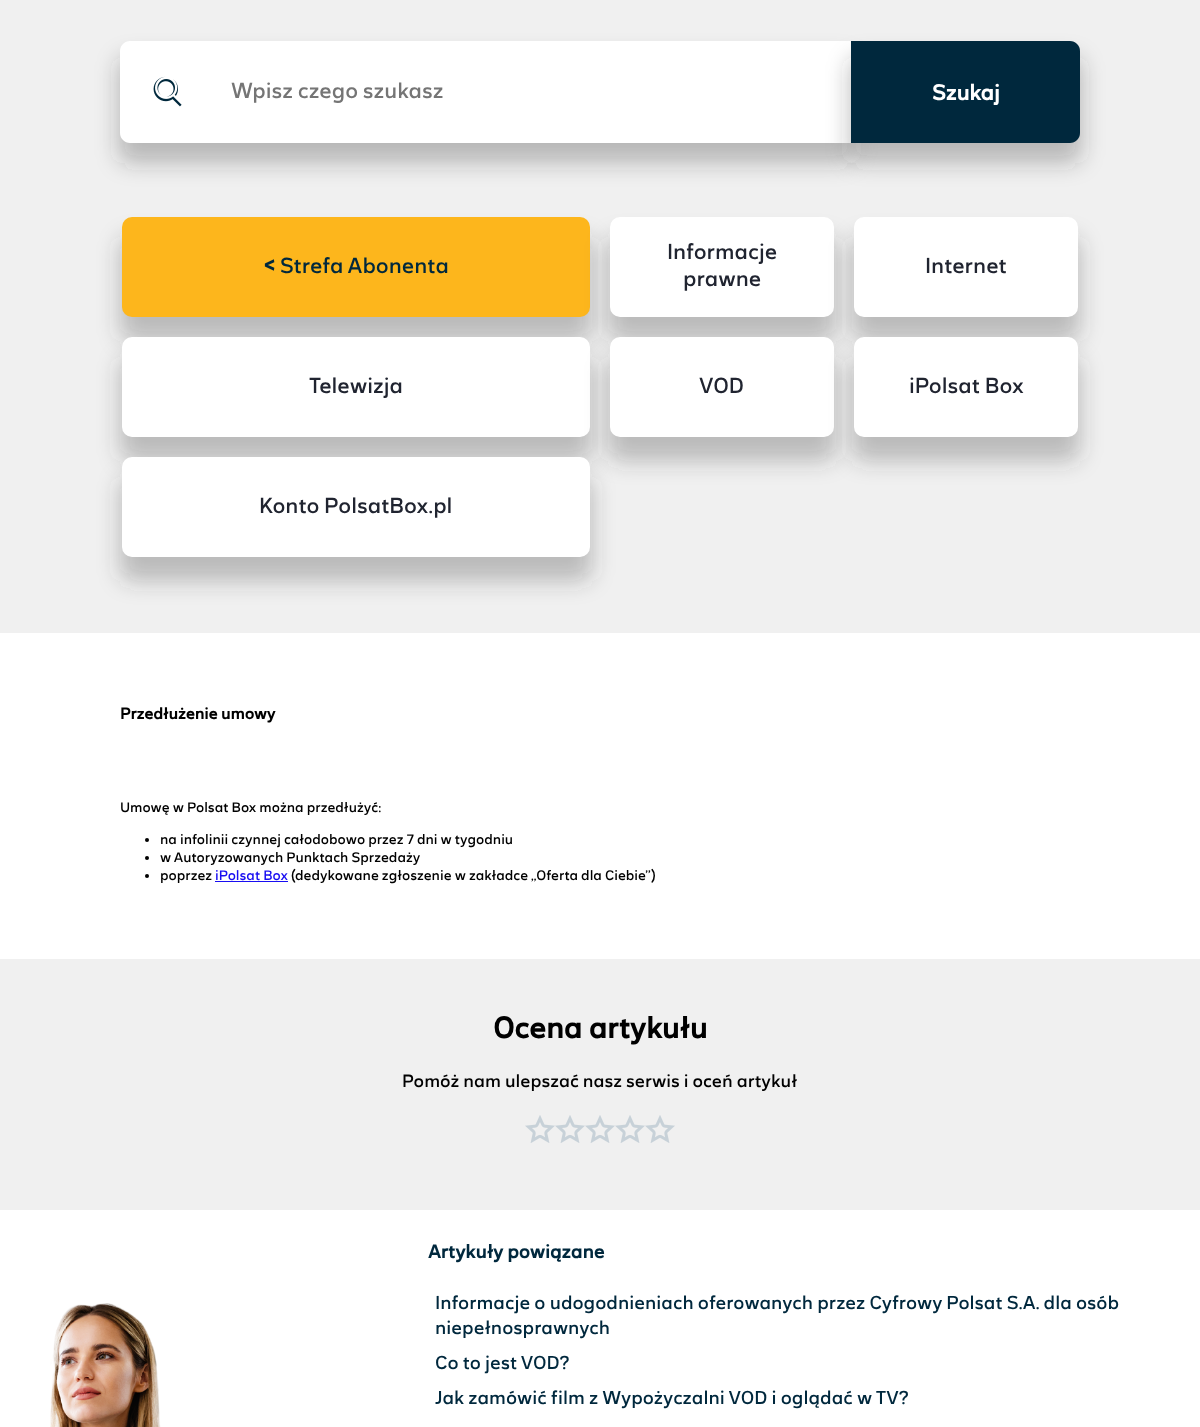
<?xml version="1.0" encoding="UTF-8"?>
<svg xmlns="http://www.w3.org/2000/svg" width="1200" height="1427">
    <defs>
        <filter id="blur1" x="-50%" y="-200%" width="200%" height="500%"><feGaussianBlur stdDeviation="11"/></filter>
    </defs>
    <rect width="100%" height="100%" fill="#F0F0F0"/>
    <rect x="118" y="57" width="736" height="106" rx="12" fill="#282828" fill-opacity="0.29" filter="url(#blur1)"/>
    <path d="M 130 41 H 852 V 143 H 130 C 124.5 143 120 138.5 120 133 V 51 C 120 45.5 124.5 41 130 41 Z" fill="#FFFFFF"/>
    <image x="153" y="76" width="29" height="31" href="img_01.png"/>
    <text x="231" y="98" font-family="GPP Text" font-size="22" fill="#757575">Wpisz czego szukasz</text>
    <rect x="849" y="57" width="233" height="106" rx="12" fill="#282828" fill-opacity="0.29" filter="url(#blur1)"/>
    <path d="M 851 41 H 1070 C 1075.5 41 1080 45.5 1080 51 V 133 C 1080 138.5 1075.5 143 1070 143 H 851 Z" fill="#00283D"/>
    <text x="932" y="100" font-family="GPP Text" font-size="22" font-weight="700" fill="#FFFFFF">Szukaj</text>
    <rect x="120" y="237" width="472" height="104" rx="12" fill="#3B3B3B" fill-opacity="0.29" filter="url(#blur1)"/>
    <rect x="122" y="217" width="468" height="100" rx="10" fill="#FDB61C"/>
    <text x="263" y="273" font-family="GPP Text" font-size="22" font-weight="700" fill="#00283D">&lt;</text>
    <text x="280" y="273" font-family="GPP Text" font-size="22" fill="#00283D">Strefa Abonenta</text>
    <rect x="608" y="237" width="228" height="104" rx="12" fill="#3B3B3B" fill-opacity="0.29" filter="url(#blur1)"/>
    <rect x="610" y="217" width="224" height="100" rx="10" fill="#FFFFFF"/>
    <text x="667" y="259" font-family="GPP Text" font-size="22" fill="#202430">Informacje</text>
    <text x="683" y="286" font-family="GPP Text" font-size="22" fill="#202430">prawne</text>
    <rect x="852" y="237" width="228" height="104" rx="12" fill="#3B3B3B" fill-opacity="0.29" filter="url(#blur1)"/>
    <rect x="854" y="217" width="224" height="100" rx="10" fill="#FFFFFF"/>
    <text x="925" y="273" font-family="GPP Text" font-size="22" fill="#202430">Internet</text>
    <rect x="120" y="357" width="472" height="104" rx="12" fill="#3B3B3B" fill-opacity="0.29" filter="url(#blur1)"/>
    <rect x="122" y="337" width="468" height="100" rx="10" fill="#FFFFFF"/>
    <text x="309" y="393" font-family="GPP Text" font-size="22" fill="#202430">Telewizja</text>
    <rect x="608" y="357" width="228" height="104" rx="12" fill="#3B3B3B" fill-opacity="0.29" filter="url(#blur1)"/>
    <rect x="610" y="337" width="224" height="100" rx="10" fill="#FFFFFF"/>
    <text x="699" y="393" font-family="GPP Text" font-size="22" fill="#202430">VOD</text>
    <rect x="852" y="357" width="228" height="104" rx="12" fill="#3B3B3B" fill-opacity="0.29" filter="url(#blur1)"/>
    <rect x="854" y="337" width="224" height="100" rx="10" fill="#FFFFFF"/>
    <text x="909" y="393" font-family="GPP Text" font-size="22" fill="#202430">iPolsat Box</text>
    <rect x="120" y="477" width="472" height="104" rx="12" fill="#3B3B3B" fill-opacity="0.29" filter="url(#blur1)"/>
    <rect x="122" y="457" width="468" height="100" rx="10" fill="#FFFFFF"/>
    <text x="259" y="513" font-family="GPP Text" font-size="22" fill="#202430">Konto PolsatBox.pl</text>
    <rect x="0" y="633" width="1200" height="326" fill="#FFFFFF"/>
    <text x="120" y="719" font-family="GPP Text" font-size="16" font-weight="700" fill="#000000">Przedłużenie umowy</text>
    <text x="120" y="812" font-family="GPP Text" font-size="14" fill="#000000">Umowę w Polsat Box można przedłużyć:</text>
    <circle cx="147" cy="840" r="2" fill="#000000"/>
    <text x="160" y="844" font-family="GPP Text" font-size="14" fill="#000000">na infolinii czynnej całodobowo przez 7 dni w tygodniu</text>
    <circle cx="147" cy="858" r="2" fill="#000000"/>
    <text x="160" y="862" font-family="GPP Text" font-size="14" fill="#000000">w Autoryzowanych Punktach Sprzedaży</text>
    <circle cx="147" cy="876" r="2" fill="#000000"/>
    <text x="160" y="880" font-family="GPP Text" font-size="14" fill="#000000">poprzez</text>
    <text x="215" y="880" font-family="GPP Text" font-size="14" fill="#180DF2">iPolsat Box</text>
    <rect x="215" y="881" width="73" height="1" fill="#180DF2"/>
    <text x="291" y="880" font-family="GPP Text" font-size="14" fill="#000000">(dedykowane zgłoszenie w zakładce „Oferta dla Ciebie”)</text>
    <text x="493" y="1038" font-family="GPP Text" font-size="30" font-weight="700" fill="#000000">Ocena artykułu</text>
    <text x="402" y="1087" font-family="GPP Text" font-size="18" fill="#000000">Pomóż nam ulepszać nasz serwis i oceń artykuł</text>
    <image x="525" y="1115" width="30" height="28" href="img_02.png"/>
    <image x="555" y="1115" width="30" height="28" href="img_02.png"/>
    <image x="585" y="1115" width="30" height="28" href="img_02.png"/>
    <image x="615" y="1115" width="30" height="28" href="img_02.png"/>
    <image x="645" y="1115" width="30" height="28" href="img_02.png"/>
    <rect x="0" y="1210" width="1200" height="217" fill="#FFFFFF"/>
    <image x="50" y="1303" width="111" height="124" href="img_03.png"/>
    <text x="428" y="1258" font-family="GPP Text" font-size="19" font-weight="700" fill="#00283D">Artykuły powiązane</text>
    <text font-family="GPP Text" font-size="19" fill="#00283D">
        <tspan x="435" y="1309">Informacje o udogodnieniach oferowanych przez Cyfrowy Polsat S.A. dla osób</tspan>
        <tspan x="435" y="1334">niepełnosprawnych</tspan>
        <tspan x="435" y="1369">Co to jest VOD?</tspan>
        <tspan x="435" y="1404">Jak zamówić film z Wypożyczalni VOD i oglądać w TV?</tspan>
    </text>
</svg>
